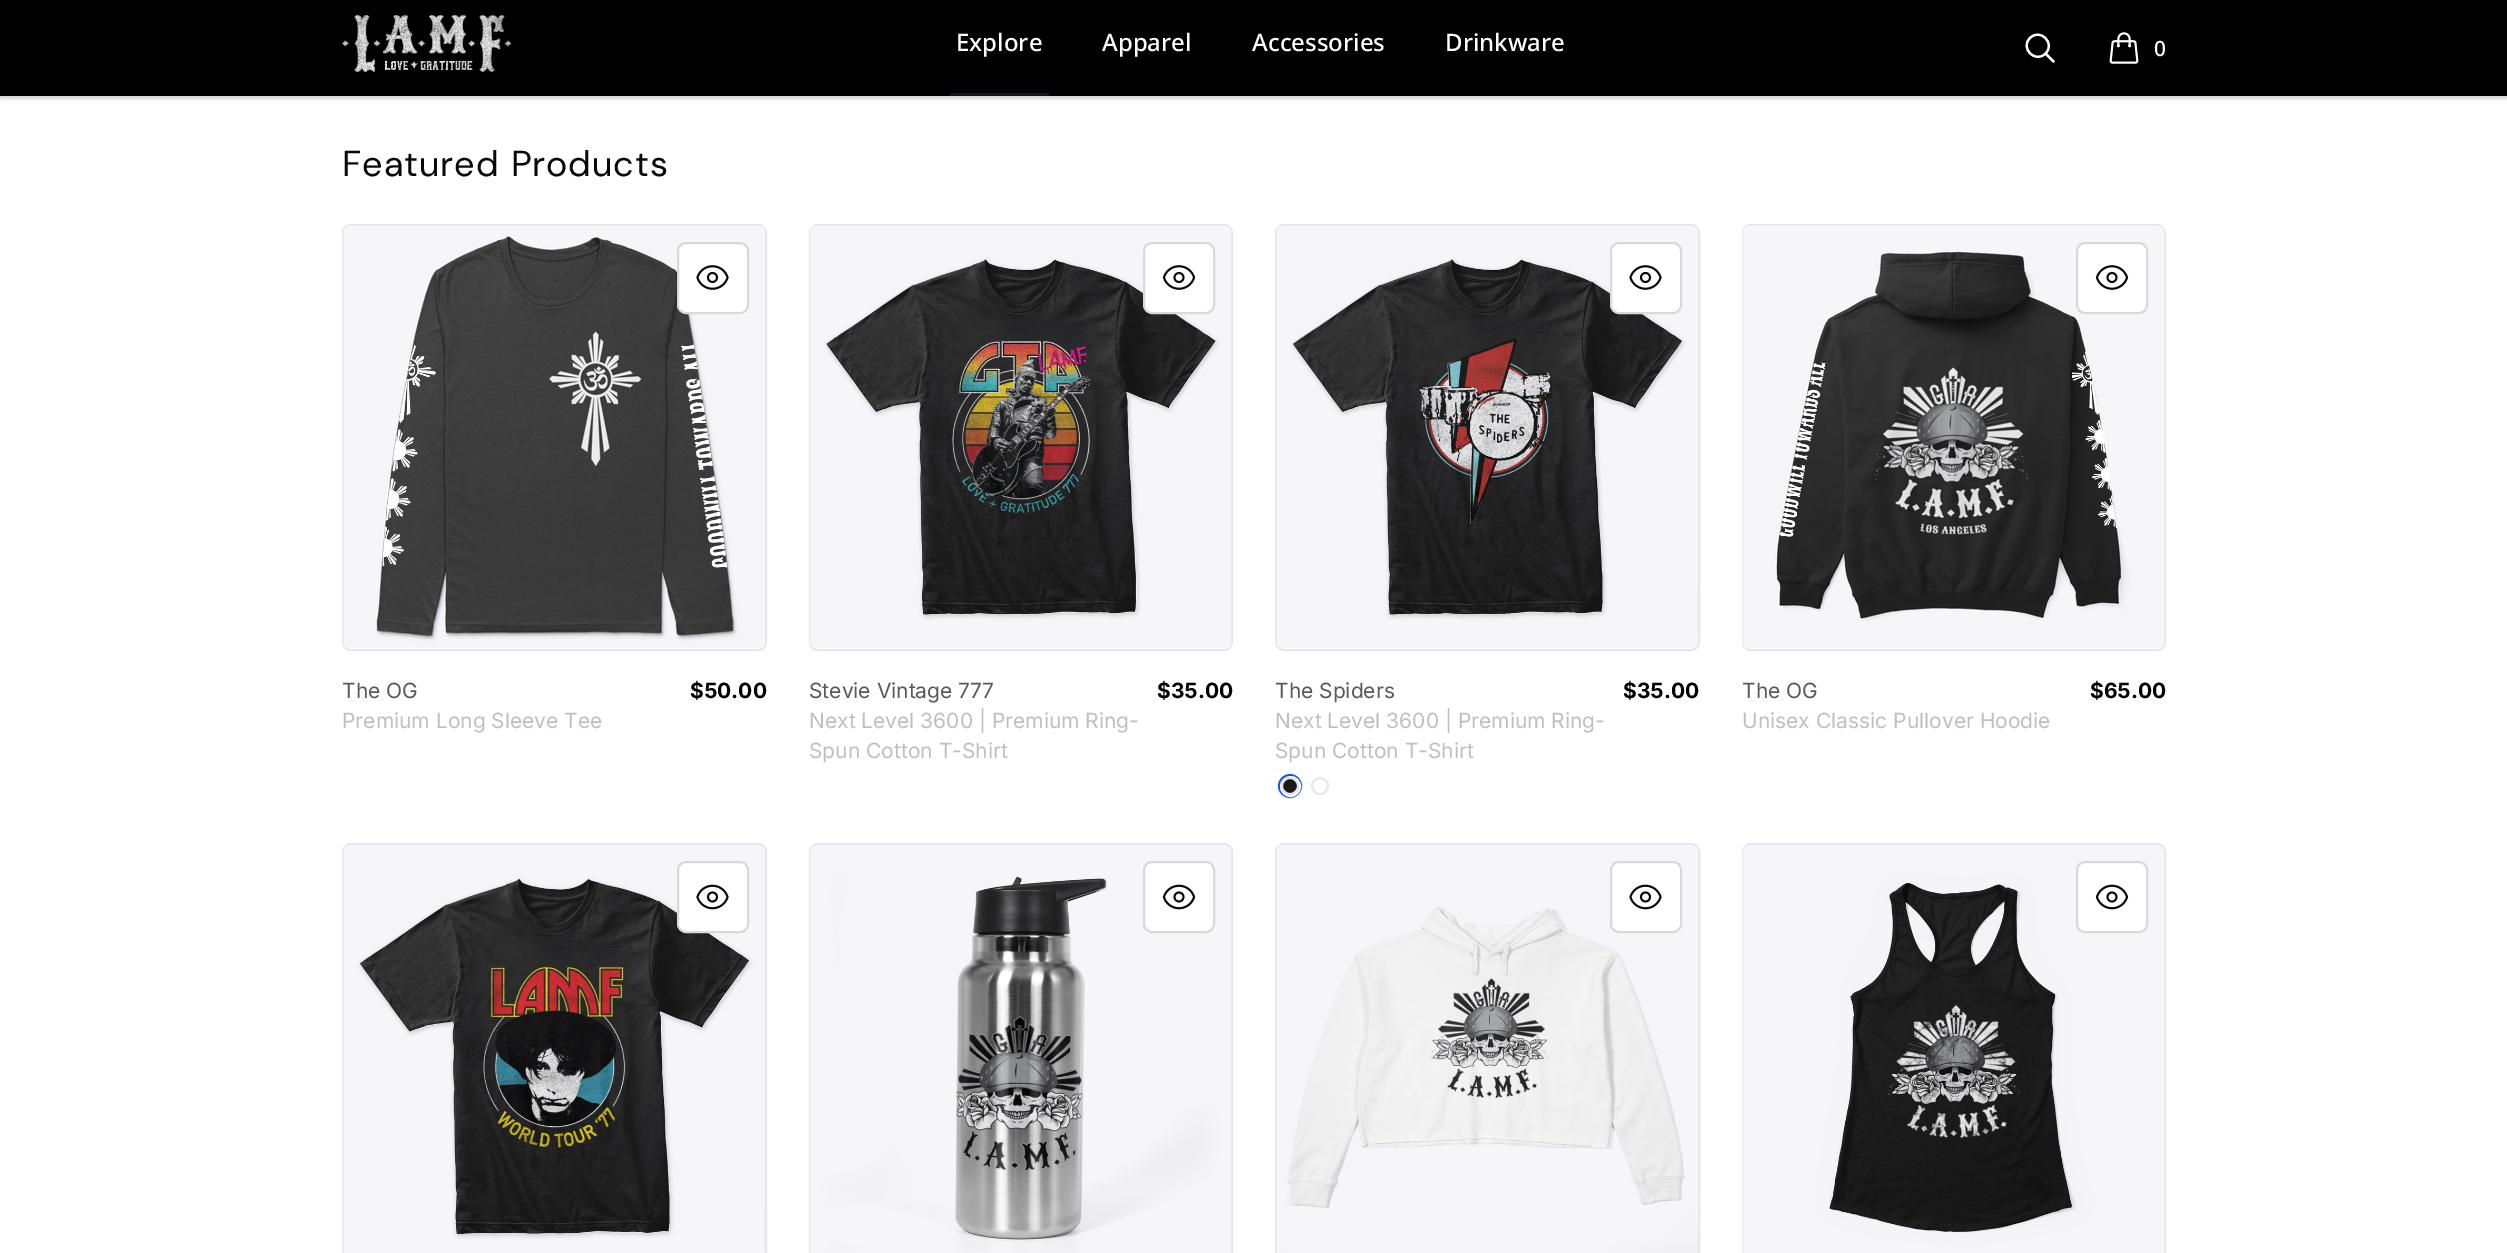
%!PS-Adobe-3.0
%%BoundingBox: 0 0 2507 1253
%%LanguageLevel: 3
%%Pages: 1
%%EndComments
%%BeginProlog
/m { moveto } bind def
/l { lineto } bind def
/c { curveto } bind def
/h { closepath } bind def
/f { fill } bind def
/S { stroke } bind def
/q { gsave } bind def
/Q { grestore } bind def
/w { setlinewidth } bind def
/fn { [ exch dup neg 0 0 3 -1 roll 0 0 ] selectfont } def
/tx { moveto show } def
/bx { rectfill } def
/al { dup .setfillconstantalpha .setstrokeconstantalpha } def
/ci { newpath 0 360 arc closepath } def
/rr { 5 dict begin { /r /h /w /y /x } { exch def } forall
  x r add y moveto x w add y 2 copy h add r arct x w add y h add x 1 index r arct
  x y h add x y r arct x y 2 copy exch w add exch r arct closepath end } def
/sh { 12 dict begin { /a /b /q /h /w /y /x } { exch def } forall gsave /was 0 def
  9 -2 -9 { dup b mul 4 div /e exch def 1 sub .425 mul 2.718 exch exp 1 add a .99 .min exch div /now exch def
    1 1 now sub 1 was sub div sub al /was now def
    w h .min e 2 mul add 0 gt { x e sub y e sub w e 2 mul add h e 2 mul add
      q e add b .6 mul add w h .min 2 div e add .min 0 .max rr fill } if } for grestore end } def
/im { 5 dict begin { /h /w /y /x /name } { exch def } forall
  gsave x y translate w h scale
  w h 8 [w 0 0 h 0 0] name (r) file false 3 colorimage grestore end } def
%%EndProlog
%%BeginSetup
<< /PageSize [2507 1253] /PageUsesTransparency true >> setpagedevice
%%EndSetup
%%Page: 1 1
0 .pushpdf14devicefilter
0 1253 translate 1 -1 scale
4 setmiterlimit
1 setgray
0 0 2507 1253 bx
0 setgray
2 3 2505 95 0 1.5 0.1 sh
0 2 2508 97 0 2 0.1 sh
0 0 2507 96 bx
0.851 setgray
0 96 2507 2 bx
(image0.raw) 342 15 170 58 im
0.067 0.094 0.153 setrgbcolor
950 93 99 3 bx
/NotoSans-Medium 24 fn
1 setgray
(Explore) 956 51 tx
(Apparel) 1102 51 tx
(Accessories) 1252 51 tx
(Drinkware) 1445 51 tx
2.2 w
1 setlinecap
1 setlinejoin
2053.5 61.5 m 2045.5 53.5 l 2045.5 53.5 m 2056 43.5 2040 27.5 2030 38 c 2019.5 48 2035.5 64 2045.5 53.5 c h S
(image1.raw) 2109 32 30 32 im
/NotoSans-Medium 21 fn
(0) 2154 56 tx
/DMSans-Regular 36 fn
0.031 0.031 0.051 setrgbcolor
342 176 m 1 0 32 0.9 0 (Featured Products) awidthshow
0.898 0.906 0.922 setrgbcolor
2 w
0 setlinecap
0 setlinejoin
343 225 423 425 8 rr S
(image2.raw) 343 226 422 422 im
1 setgray
678 243 70 70 8 rr q f Q
0.851 setgray
S
(image3.raw) 696 265 33 25 im
/Inter-Regular 21 fn
0.349 setgray
(The OG) 342 698 tx
0.749 setgray
(Premium Long Sleeve Tee) 342 728 tx
/Inter-Bold 21 fn
0 setgray
($50.00) 690 698 tx
0.898 0.906 0.922 setrgbcolor
810 225 422 425 8 rr S
(image4.raw) 810 226 422 422 im
1 setgray
1144 243 70 70 8 rr q f Q
0.851 setgray
S
(image5.raw) 1162 265 34 25 im
/Inter-Regular 21 fn
0.349 setgray
(Stevie Vintage 777) 809 698 tx
0.749 setgray
(Next Level 3600 | Premium Ring-) 809 728 tx
(Spun Cotton T-Shirt) 809 758 tx
/Inter-Bold 21 fn
0 setgray
($35.00) 1157 698 tx
0.898 0.906 0.922 setrgbcolor
1276 225 423 425 8 rr S
(image6.raw) 1276 226 422 422 im
1 setgray
1611 243 70 70 8 rr q f Q
0.851 setgray
S
(image3.raw) 1629 265 33 25 im
/Inter-Regular 21 fn
0.349 setgray
(The Spiders) 1275 698 tx
0.749 setgray
(Next Level 3600 | Premium Ring-) 1275 728 tx
(Spun Cotton T-Shirt) 1275 758 tx
/Inter-Bold 21 fn
0 setgray
($35.00) 1623 698 tx
0.098 0.329 0.922 setrgbcolor
3 w
1290 786 10.5 ci S
1 setgray
2 w
1290.5 786.5 9.5 ci S
0.102 setgray
1290 786 8 ci q f Q
0.898 0.906 0.922 setrgbcolor
S
1320 786 8 ci S
1743 225 422 425 8 rr S
(image7.raw) 1743 226 422 422 im
1 setgray
2077 243 70 70 8 rr q f Q
0.851 setgray
S
(image5.raw) 2095 265 34 25 im
/Inter-Regular 21 fn
0.349 setgray
(The OG) 1742 698 tx
0.749 setgray
(Unisex Classic Pullover Hoodie) 1742 728 tx
/Inter-Bold 21 fn
0 setgray
($65.00) 2090 698 tx
0.898 0.906 0.922 setrgbcolor
343 844 423 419 8 rr S
(image8.raw) 343 846 422 407 im
1 setgray
678 862 70 70 8 rr q f Q
0.851 setgray
S
(image9.raw) 696 884 33 26 im
0.898 0.906 0.922 setrgbcolor
810 844 422 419 8 rr S
(image10.raw) 810 846 422 407 im
1 setgray
1144 862 70 70 8 rr q f Q
0.851 setgray
S
(image11.raw) 1162 884 34 26 im
0.898 0.906 0.922 setrgbcolor
1276 844 423 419 8 rr S
(image12.raw) 1276 846 422 407 im
1 setgray
1611 862 70 70 8 rr q f Q
0.851 setgray
S
(image9.raw) 1629 884 33 26 im
0.898 0.906 0.922 setrgbcolor
1743 844 422 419 8 rr S
(image13.raw) 1743 846 422 407 im
1 setgray
2077 862 70 70 8 rr q f Q
0.851 setgray
S
(image11.raw) 2095 884 34 26 im
.poppdf14devicefilter showpage
%%EOF
